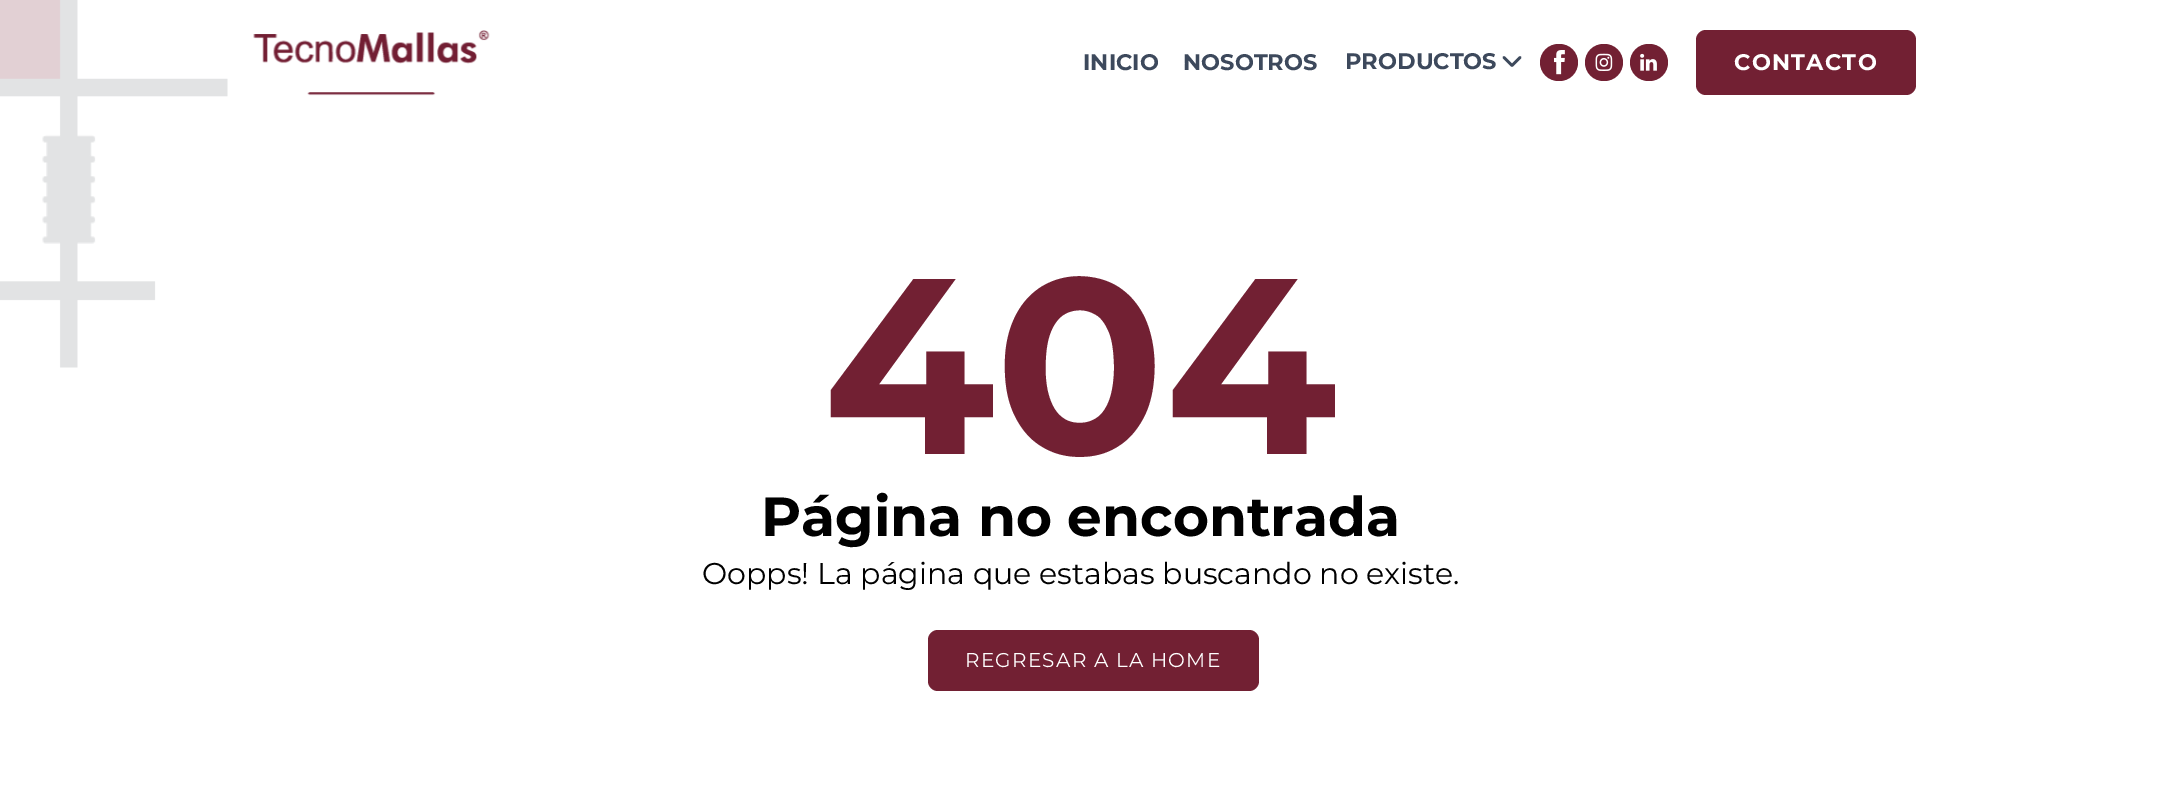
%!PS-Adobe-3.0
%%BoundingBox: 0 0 2161 799
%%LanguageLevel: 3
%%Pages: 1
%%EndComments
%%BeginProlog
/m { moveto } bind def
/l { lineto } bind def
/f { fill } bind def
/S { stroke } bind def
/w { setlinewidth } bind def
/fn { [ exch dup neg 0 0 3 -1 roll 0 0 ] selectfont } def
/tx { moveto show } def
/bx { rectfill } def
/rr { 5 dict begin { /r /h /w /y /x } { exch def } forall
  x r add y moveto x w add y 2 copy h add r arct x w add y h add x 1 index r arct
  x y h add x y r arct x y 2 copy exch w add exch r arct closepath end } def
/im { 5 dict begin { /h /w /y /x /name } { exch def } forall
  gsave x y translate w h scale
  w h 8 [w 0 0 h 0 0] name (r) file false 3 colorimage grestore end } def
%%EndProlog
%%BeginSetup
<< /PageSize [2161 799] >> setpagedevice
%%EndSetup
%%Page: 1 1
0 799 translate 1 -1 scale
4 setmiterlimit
1 setgray
0 0 2161 799 bx
(image0.raw) 0 0 228 368 im
(image1.raw) 253 30 237 66 im
/Montserrat-Bold 22.5 fn
0.239 0.286 0.361 setrgbcolor
(INICIO) 1083 70 tx
(NOSOTROS) 1183 70 tx
(PRODUCTOS) 1345 69 tx
2.5 w
1 setlinecap
1 setlinejoin
1504 57.5 m 1512 65.5 l 1520 57.5 l S
0.447 0.125 0.2 setrgbcolor
1540 44 38 37 18.5 rr f
(image2.raw) 1554 50 11 25 im
1585 44 38 37 18.5 rr f
(image3.raw) 1595 53 18 18 im
1630 44 38 37 18.5 rr f
(image4.raw) 1640 53 17 18 im
1696 30 220 65 10 rr f
1 setgray
1734 70 m 1.25 0 (CONTACTO) ashow
/Montserrat-Bold 250 fn
0.447 0.125 0.2 setrgbcolor
(404) 823 454 tx
/Montserrat-Bold 55 fn
0 setgray
(Página no encontrada) 761 536 tx
/Montserrat-Regular 30 fn
(Oopps! La página que estabas buscando no existe.) 702 584 tx
0.447 0.125 0.2 setrgbcolor
928 630 331 61 10 rr f
/Montserrat-Regular 20 fn
1 setgray
965 667 m 1.25 0 (REGRESAR A LA HOME) ashow
showpage
%%EOF
